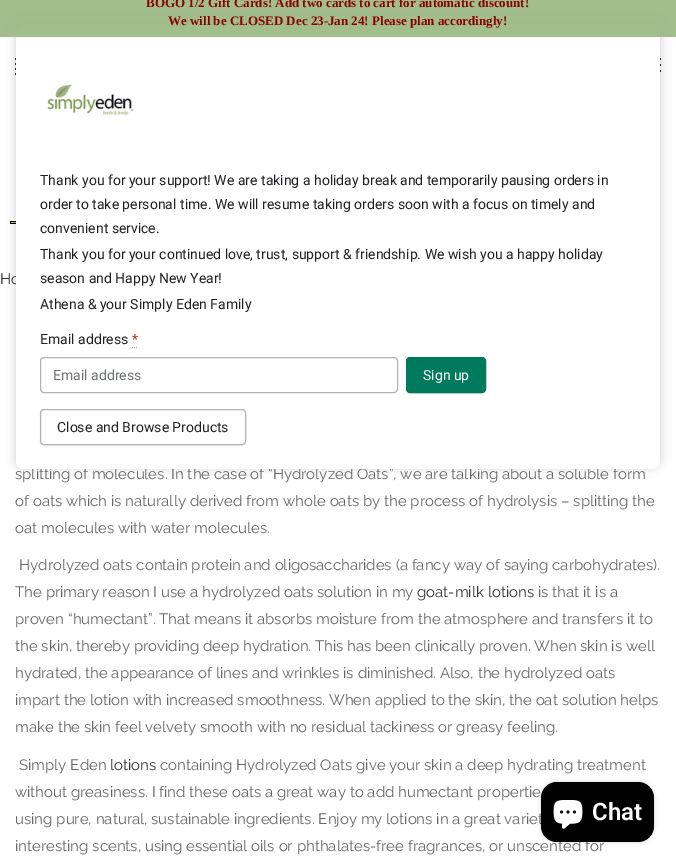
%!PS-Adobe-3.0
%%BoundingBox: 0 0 676 863
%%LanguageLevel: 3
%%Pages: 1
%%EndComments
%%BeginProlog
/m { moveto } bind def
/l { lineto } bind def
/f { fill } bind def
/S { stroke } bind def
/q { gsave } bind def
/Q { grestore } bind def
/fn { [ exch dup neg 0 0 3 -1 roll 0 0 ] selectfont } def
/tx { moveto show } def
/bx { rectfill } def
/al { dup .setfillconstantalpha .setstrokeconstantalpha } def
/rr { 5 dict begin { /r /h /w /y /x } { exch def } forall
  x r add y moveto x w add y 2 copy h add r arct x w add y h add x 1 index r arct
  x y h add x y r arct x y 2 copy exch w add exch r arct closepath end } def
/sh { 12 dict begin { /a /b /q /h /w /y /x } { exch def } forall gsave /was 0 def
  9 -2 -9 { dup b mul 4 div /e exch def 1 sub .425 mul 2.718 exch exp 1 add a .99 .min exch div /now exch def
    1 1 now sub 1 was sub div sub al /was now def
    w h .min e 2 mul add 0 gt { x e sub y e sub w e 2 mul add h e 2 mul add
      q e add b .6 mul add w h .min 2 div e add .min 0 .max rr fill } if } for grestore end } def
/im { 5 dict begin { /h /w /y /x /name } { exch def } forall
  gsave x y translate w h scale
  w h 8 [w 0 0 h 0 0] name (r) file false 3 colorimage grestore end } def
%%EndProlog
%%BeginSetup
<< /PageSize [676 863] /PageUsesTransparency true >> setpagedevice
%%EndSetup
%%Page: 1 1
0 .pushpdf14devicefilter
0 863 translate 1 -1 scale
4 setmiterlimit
1 setgray
0 0 676 863 bx
0.137 0.184 0.243 setrgbcolor
15 58 1 2 bx
15 63 1 2 bx
15 68 1 2 bx
15 73 1 2 bx
0.2 setgray
660 58 1 2 bx
660 64 1 2 bx
660 70 1 2 bx
(image1.raw) 10 221 6 3 im
0 setgray
16 22 644 445 8 5 0.2 sh
/Raleway-Regular 15 fn
0.2 setgray
(Ho) 0 284 tx
0.4 setgray
(splitting of molecules. In the case of “Hydrolyzed Oats”, we are talking about a soluble form) 15 479 tx
1 setgray
16 24 644 445 8 rr f
0.95 al
0.616 0.729 0.522 setrgbcolor
0 0 676 37 bx
/LiberationSerif-Bold 13 fn
1 al
0.545 0 0 setrgbcolor
(BOGO 1/2 Gift Cards! Add two cards to cart for automatic discount!) 146 7 tx
(We will be CLOSED Dec 23-Jan 24! Please plan accordingly!) 168 25 tx
(image0.raw) 46 84 88 32 im
/Roboto-Regular 14 fn
0.122 0.129 0.141 setrgbcolor
(Thank you for your support! We are taking a holiday break and temporarily pausing orders in) 40 185 tx
(order to take personal time. We will resume taking orders soon with a focus on timely and) 40 209 tx
(convenient service.) 40 233 tx
(Thank you for your continued love, trust, support & friendship. We wish you a happy holiday) 40 259 tx
(season and Happy New Year!) 40 283 tx
(Athena & your Simply Eden Family) 40 309 tx
(Email address) 40 344 tx
0.773 0.157 0.047 setrgbcolor
(*) 132 344 tx
0.667 setgray
132 347.5 m 133 347.5 l 134 347.5 m 135 347.5 l 136 347.5 m 137 347.5 l S
0.682 0.706 0.725 setrgbcolor
40.5 357.5 357 35 3.5 rr S
0.427 0.443 0.459 setrgbcolor
(Email address) 53 380 tx
0.122 0.129 0.141 setrgbcolor
406 358 80 36 4 0.5 0.1 sh
0 0.478 0.361 setrgbcolor
406.5 357.5 79 35 3.5 rr q f Q
S
1 setgray
(Sign up) 423 380 tx
0.122 0.129 0.141 setrgbcolor
40 410 206 36 4 0.5 0.1 sh
1 setgray
40.5 409.5 205 35 3.5 rr q f Q
0.682 0.706 0.725 setrgbcolor
S
0.122 0.129 0.141 setrgbcolor
(Close and Browse Products) 57 432 tx
/Raleway-Regular 15 fn
0.4 setgray
(of oats which is naturally derived from whole oats by the process of hydrolysis – splitting the) 15 506 tx
(oat molecules with water molecules.) 15 533 tx
(Hydrolyzed oats contain protein and oligosaccharides \(a fancy way of saying carbohydrates\).) 19 570 tx
(The primary reason I use a hydrolyzed oats solution in my) 15 597 tx
0.2 setgray
(goat-milk lotions) 417 597 tx
0.4 setgray
(is that it is a) 538 597 tx
(proven “humectant”. That means it absorbs moisture from the atmosphere and transfers it to) 15 624 tx
(the skin, thereby providing deep hydration. This has been clinically proven. When skin is well) 15 651 tx
(hydrated, the appearance of lines and wrinkles is diminished. Also, the hydrolyzed oats) 15 678 tx
(impart the lotion with increased smoothness. When applied to the skin, the oat solution helps) 15 705 tx
(make the skin feel velvety smooth with no residual tackiness or greasy feeling.) 15 732 tx
(Simply Eden) 19 770 tx
0.2 setgray
(lotions) 110 770 tx
0.4 setgray
(containing Hydrolyzed Oats give your skin a deep hydrating treatment) 160 770 tx
(without greasiness. I find these oats a great way to add humectant propertie) 15 797 tx
(using pure, natural, sustainable ingredients. Enjoy my lotions in a great variet) 15 824 tx
(interesting scents, using essential oils or phthalates-free fragrances, or unscented for) 15 851 tx
0 setgray
541 782 113 60 16 2.5 0.15 sh
541 782 113 60 16 rr f
(image2.raw) 553 800 30 29 im
/Roboto-SemiBold 24 fn
1 setgray
(Chat) 592 820 tx
.poppdf14devicefilter showpage
%%EOF
